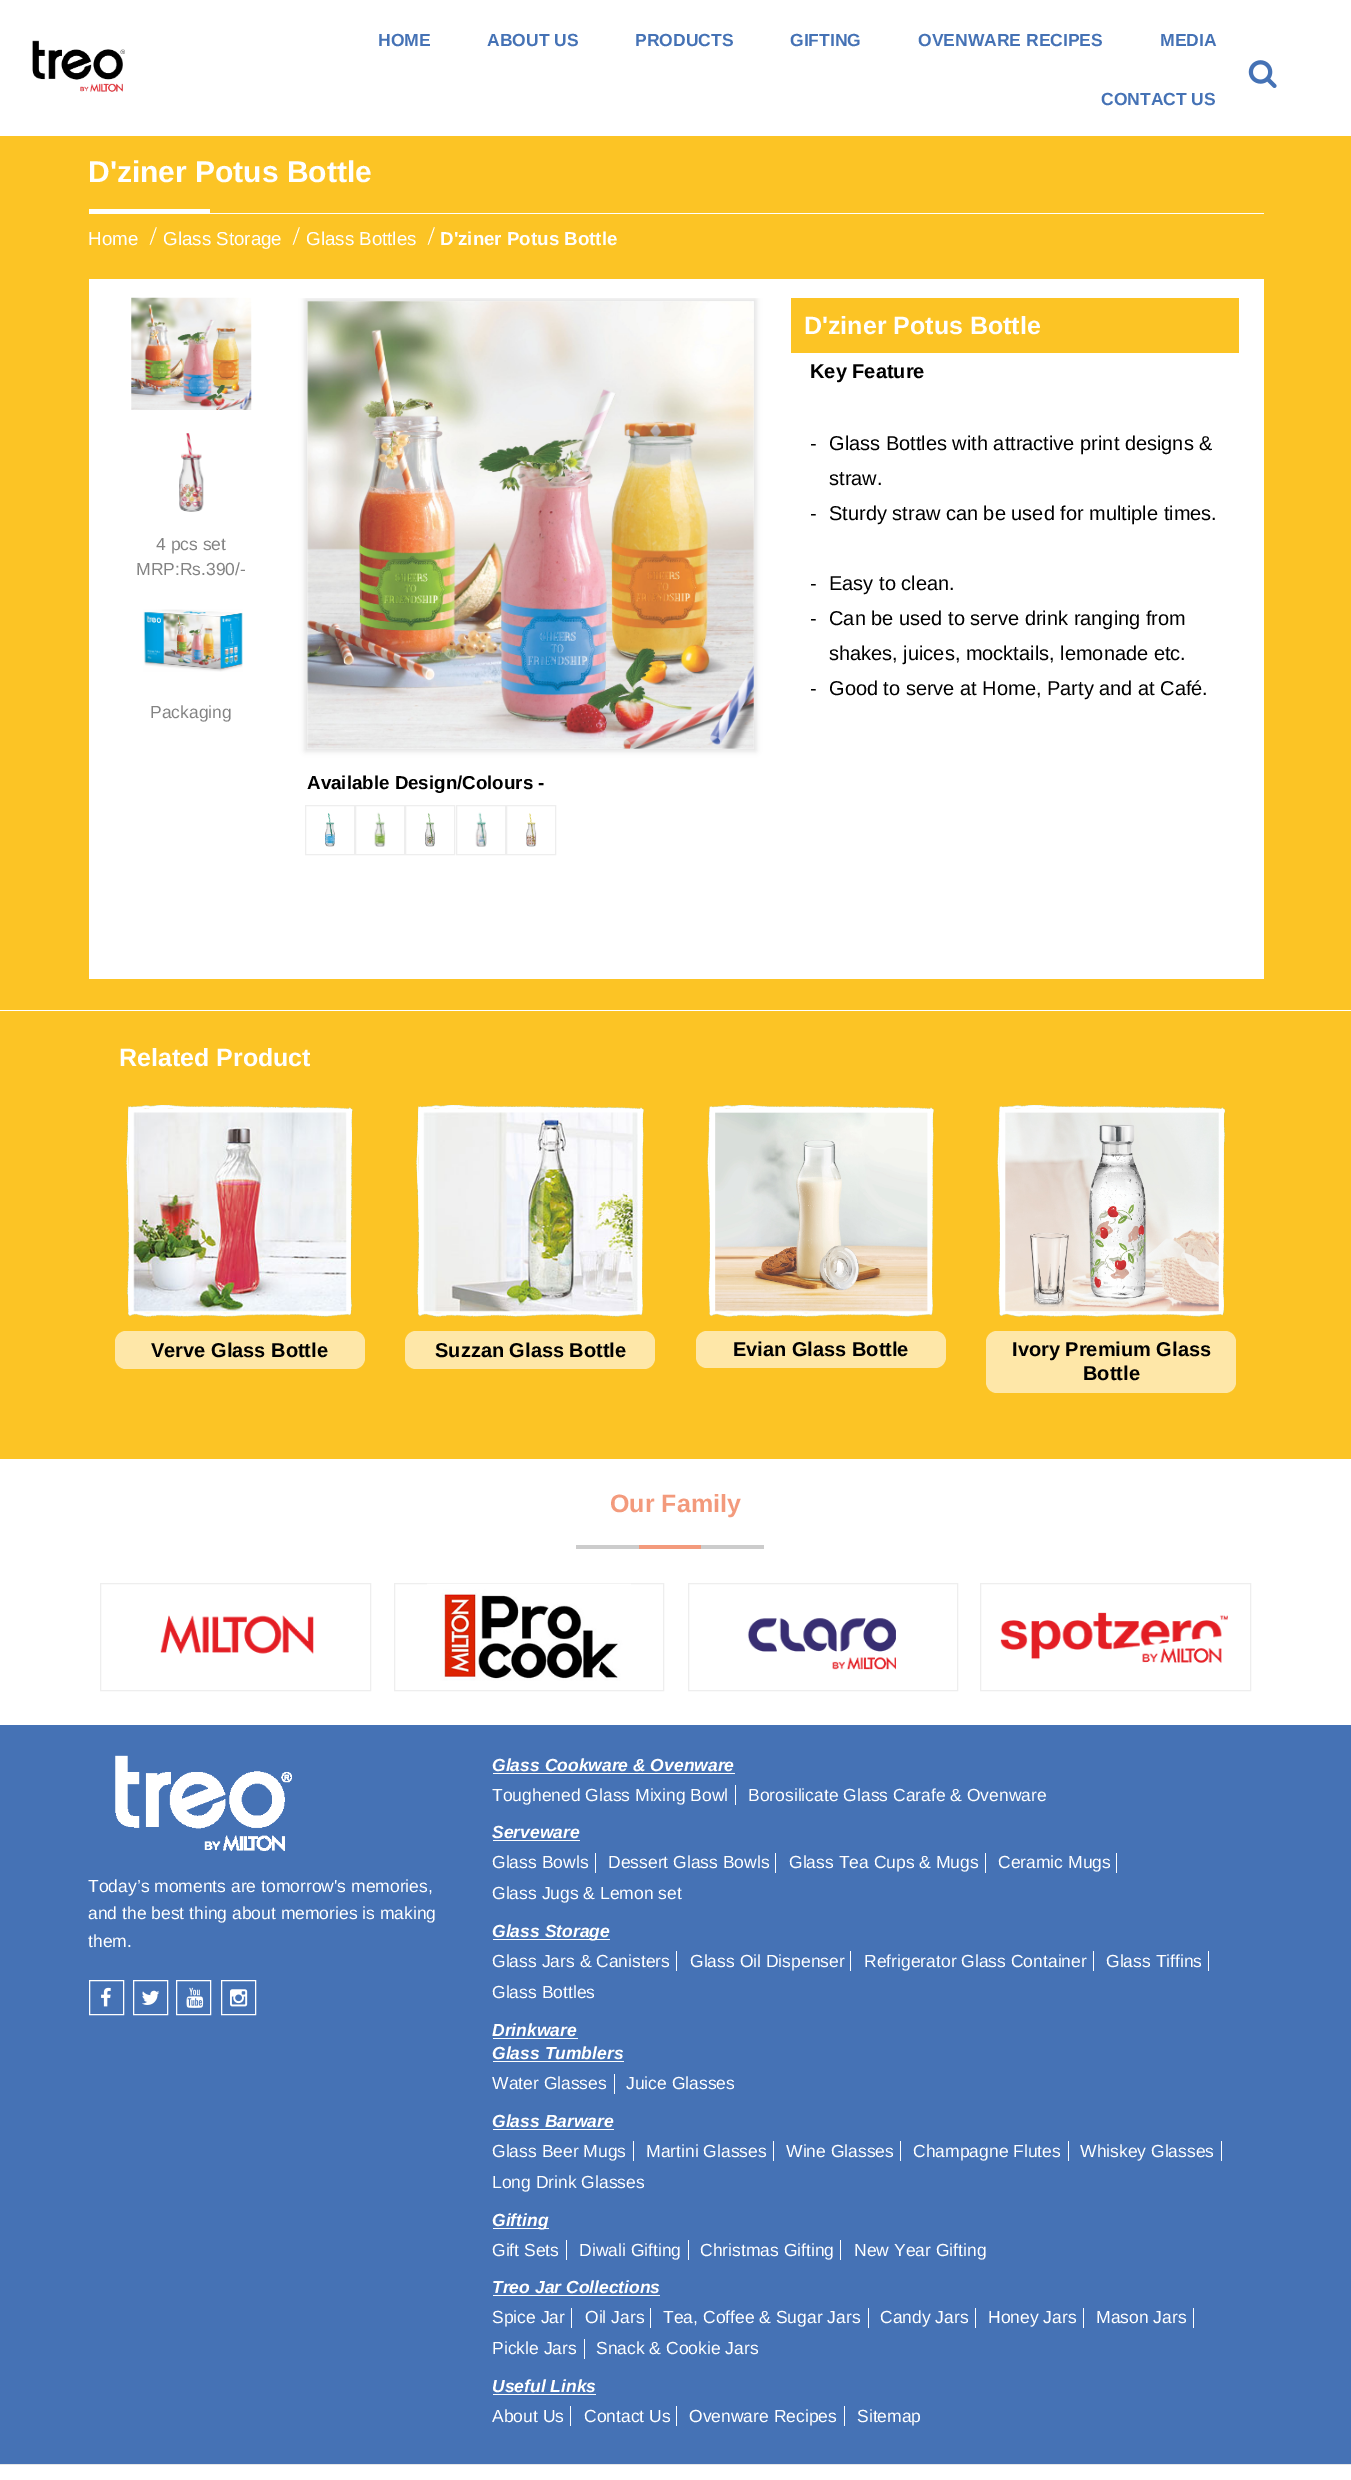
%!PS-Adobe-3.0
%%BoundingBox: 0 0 1351 2480
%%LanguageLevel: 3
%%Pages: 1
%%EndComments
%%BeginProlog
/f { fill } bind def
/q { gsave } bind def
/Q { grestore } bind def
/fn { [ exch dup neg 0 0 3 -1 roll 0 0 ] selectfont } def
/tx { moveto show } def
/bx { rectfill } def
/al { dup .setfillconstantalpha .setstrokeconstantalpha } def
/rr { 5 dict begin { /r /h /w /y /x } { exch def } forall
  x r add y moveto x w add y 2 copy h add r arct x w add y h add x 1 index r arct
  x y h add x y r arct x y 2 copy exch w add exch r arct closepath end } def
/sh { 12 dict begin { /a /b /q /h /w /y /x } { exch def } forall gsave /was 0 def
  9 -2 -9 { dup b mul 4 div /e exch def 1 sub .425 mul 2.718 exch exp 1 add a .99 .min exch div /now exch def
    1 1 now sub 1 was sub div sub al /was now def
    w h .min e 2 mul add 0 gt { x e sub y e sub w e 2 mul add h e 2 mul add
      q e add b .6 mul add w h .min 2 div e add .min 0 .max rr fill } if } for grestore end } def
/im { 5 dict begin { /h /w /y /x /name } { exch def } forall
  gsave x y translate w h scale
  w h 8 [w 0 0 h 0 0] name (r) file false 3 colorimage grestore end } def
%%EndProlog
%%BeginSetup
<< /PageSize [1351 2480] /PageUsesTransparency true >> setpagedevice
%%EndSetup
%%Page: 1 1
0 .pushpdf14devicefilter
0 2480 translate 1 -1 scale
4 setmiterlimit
1 setgray
0 0 1351 2480 bx
(image0.raw) 32 40 93 52 im
/LiberationSans-Bold 17.5 fn
0.271 0.447 0.71 setrgbcolor
(HOME) 378 46 tx
(ABOUT US) 487 46 tx
(PRODUCTS) 635 46 tx
(GIFTING) 790 46 tx
(OVENWARE RECIPES) 918 46 tx
(MEDIA) 1160 46 tx
(CONTACT US) 1101 105 tx
(image1.raw) 1248 60 29 28 im
0.988 0.769 0.145 setrgbcolor
0 136 1351 874 bx
/LiberationSans-Bold 30 fn
1 setgray
(D'ziner Potus Bottle) 88 182 tx
89 209 121 5 bx
210 213 1054 1 bx
/LiberationSans-Regular 18.75 fn
(Home) 88 245 tx
/Montserrat-Regular 18.75 fn
(/) 150 243 tx
/LiberationSans-Regular 18.75 fn
(Glass Storage) 163 245 tx
/Montserrat-Regular 18.75 fn
(/) 293 243 tx
/LiberationSans-Regular 18.75 fn
(Glass Bottles) 306 245 tx
/Montserrat-Regular 18.75 fn
(/) 428 243 tx
/LiberationSans-Bold 18.75 fn
(D'ziner Potus Bottle) 440 245 tx
89 279 1175 700 bx
(image2.raw) 131 297 121 113 im
(image3.raw) 179 433 25 79 im
/LiberationSans-Regular 17.5 fn
0.514 setgray
(4 pcs set) 156 550 tx
(MRP:Rs.390/-) 136 575 tx
(image4.raw) 143 609 100 63 im
(Packaging) 150 718 tx
0.988 0.769 0.145 setrgbcolor
791 298 448 55 bx
/LiberationSans-Bold 25 fn
1 setgray
(D'ziner Potus Bottle) 804 334 tx
/LiberationSans-Bold 20 fn
0 setgray
(Key Feature) 810 378 tx
/LiberationSans-Regular 20 fn
(-) 810 450 tx
(Glass Bottles with attractive print designs &) 829 450 tx
(straw.) 829 485 tx
(-) 810 520 tx
(Sturdy straw can be used for multiple times.) 829 520 tx
(-) 810 590 tx
(Easy to clean.) 829 590 tx
(-) 810 625 tx
(Can be used to serve drink ranging from) 829 625 tx
(shakes, juices, mocktails, lemonade etc.) 829 660 tx
(-) 810 695 tx
(Good to serve at Home, Party and at Café.) 829 695 tx
q
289 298 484 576 rectclip
0.82 setgray
305 299 451 452 0 3 0.7 sh
Q
(image5.raw) 307 301 447 448 im
/LiberationSans-Bold 18.75 fn
(Available Design/Colours -) 307 789 tx
0.933 setgray
305.5 805.5 49 49 rectstroke
355.5 805.5 49 49 rectstroke
405.5 805.5 49 49 rectstroke
456.5 805.5 49 49 rectstroke
506.5 805.5 49 49 rectstroke
(image6.raw) 325 813 10 34 im
(image7.raw) 374 812 12 35 im
(image8.raw) 425 813 10 34 im
(image9.raw) 475 812 12 35 im
(image10.raw) 526 813 11 34 im
0.988 0.769 0.145 setrgbcolor
0 1011 1351 448 bx
/LiberationSans-Bold 25 fn
1 setgray
(Related Product) 119 1066 tx
(image11.raw) 126 1105 227 213 im
(image12.raw) 133 1112 214 200 im
0.996 0.906 0.659 setrgbcolor
115 1331 250 38 11 rr f
/LiberationSans-Bold 20 fn
0 setgray
(Verve Glass Bottle) 151 1357 tx
(image13.raw) 416 1105 228 212 im
(image14.raw) 423 1112 215 200 im
0.996 0.906 0.659 setrgbcolor
405 1331 250 38 11 rr f
0 setgray
(Suzzan Glass Bottle) 435 1357 tx
(image15.raw) 707 1105 227 213 im
(image16.raw) 715 1112 213 200 im
0.996 0.906 0.659 setrgbcolor
696 1331 250 37 11 rr f
0 setgray
(Evian Glass Bottle) 733 1356 tx
(image17.raw) 997 1105 228 213 im
(image18.raw) 1005 1112 214 200 im
0.996 0.906 0.659 setrgbcolor
986 1331 250 62 11 rr f
0 setgray
(Ivory Premium Glass) 1012 1356 tx
(Bottle) 1083 1380 tx
/LiberationSans-Bold 25 fn
0.953 0.604 0.486 setrgbcolor
(Our Family) 610 1512 tx
0.8 setgray
576 1545 188 4 bx
0.953 0.604 0.486 setrgbcolor
639 1545 62 4 bx
0.933 setgray
100.5 1583.5 270 107 rectstroke
(image19.raw) 160 1615 154 39 im
394.5 1583.5 269 107 rectstroke
(image20.raw) 427 1583 204 98 im
688.5 1583.5 269 107 rectstroke
(image21.raw) 747 1618 149 52 im
980.5 1583.5 270 107 rectstroke
(image22.raw) 1000 1612 228 51 im
0.271 0.447 0.71 setrgbcolor
0 1725 1351 739 bx
0.902 setgray
0 2464 1351 1 bx
(image23.raw) 115 1755 177 96 im
/LiberationSans-Regular 17.5 fn
1 setgray
(Today’s moments are tomorrow's memories,) 88 1892 tx
(and the best thing about memories is making) 88 1919 tx
(them.) 88 1947 tx
89.5 1980.5 34 34 rectstroke
(image24.raw) 101 1987 10 20 im
133.5 1980.5 34 34 rectstroke
(image25.raw) 142 1990 18 15 im
176.5 1980.5 34 34 rectstroke
(image26.raw) 186 1987 18 21 im
221.5 1980.5 34 34 rectstroke
(image27.raw) 230 1989 18 18 im
/LiberationSans-BoldItalic 17.5 fn
(Glass Cookware & Ovenware) 492 1771 tx
493 1773 242 1 bx
/LiberationSans-Regular 17.5 fn
(Toughened Glass Mixing Bowl) 492 1801 tx
735 1785 1 20 bx
(Borosilicate Glass Carafe & Ovenware) 748 1801 tx
/LiberationSans-BoldItalic 17.5 fn
(Serveware) 492 1838 tx
493 1840 87 1 bx
/LiberationSans-Regular 17.5 fn
(Glass Bowls) 492 1868 tx
595 1853 1 20 bx
(Dessert Glass Bowls) 608 1868 tx
775 1853 1 20 bx
(Glass Tea Cups & Mugs) 789 1868 tx
985 1853 1 20 bx
(Ceramic Mugs) 998 1868 tx
1116 1853 1 20 bx
(Glass Jugs & Lemon set) 492 1899 tx
493 1939 117 1 bx
/LiberationSans-BoldItalic 17.5 fn
(Glass Storage) 492 1937 tx
/LiberationSans-Regular 17.5 fn
(Glass Jars & Canisters) 492 1967 tx
676 1951 1 20 bx
(Glass Oil Dispenser) 690 1967 tx
850 1951 1 20 bx
(Refrigerator Glass Container) 864 1967 tx
1093 1951 1 20 bx
(Glass Tiffins) 1106 1967 tx
1208 1951 1 20 bx
(Glass Bottles) 492 1998 tx
/LiberationSans-BoldItalic 17.5 fn
(Drinkware) 492 2036 tx
493 2038 85 1 bx
(Glass Tumblers) 492 2059 tx
493 2061 131 1 bx
/LiberationSans-Regular 17.5 fn
(Water Glasses) 492 2089 tx
614 2074 1 20 bx
(Juice Glasses) 626 2089 tx
/LiberationSans-BoldItalic 17.5 fn
(Glass Barware) 492 2127 tx
493 2129 121 1 bx
/LiberationSans-Regular 17.5 fn
(Glass Beer Mugs) 492 2157 tx
633 2141 1 20 bx
(Martini Glasses) 646 2157 tx
773 2141 1 20 bx
(Wine Glasses) 786 2157 tx
900 2141 1 20 bx
(Champagne Flutes) 913 2157 tx
1068 2141 1 20 bx
(Whiskey Glasses) 1080 2157 tx
1221 2141 1 20 bx
(Long Drink Glasses) 492 2188 tx
493 2228 56 1 bx
/LiberationSans-BoldItalic 17.5 fn
(Gifting) 492 2226 tx
/LiberationSans-Regular 17.5 fn
(Gift Sets) 492 2256 tx
566 2240 1 20 bx
(Diwali Gifting) 579 2256 tx
688 2240 1 20 bx
(Christmas Gifting) 700 2256 tx
840 2240 1 20 bx
(New Year Gifting) 854 2256 tx
/LiberationSans-BoldItalic 17.5 fn
(Treo Jar Collections) 492 2293 tx
493 2295 167 1 bx
/LiberationSans-Regular 17.5 fn
(Spice Jar) 492 2323 tx
571 2308 1 20 bx
(Oil Jars) 585 2323 tx
650 2308 1 20 bx
(Tea, Coffee & Sugar Jars) 663 2323 tx
868 2308 1 20 bx
(Candy Jars) 880 2323 tx
975 2308 1 20 bx
(Honey Jars) 988 2323 tx
1083 2308 1 20 bx
(Mason Jars) 1096 2323 tx
1193 2308 1 20 bx
(Pickle Jars) 492 2354 tx
584 2339 1 20 bx
(Snack & Cookie Jars) 596 2354 tx
/LiberationSans-BoldItalic 17.5 fn
(Useful Links) 492 2392 tx
493 2394 103 1 bx
/LiberationSans-Regular 17.5 fn
(About Us) 492 2422 tx
570 2406 1 20 bx
(Contact Us) 584 2422 tx
676 2406 1 20 bx
(Ovenware Recipes) 689 2422 tx
844 2406 1 20 bx
(Sitemap) 857 2422 tx
.poppdf14devicefilter showpage
%%EOF
